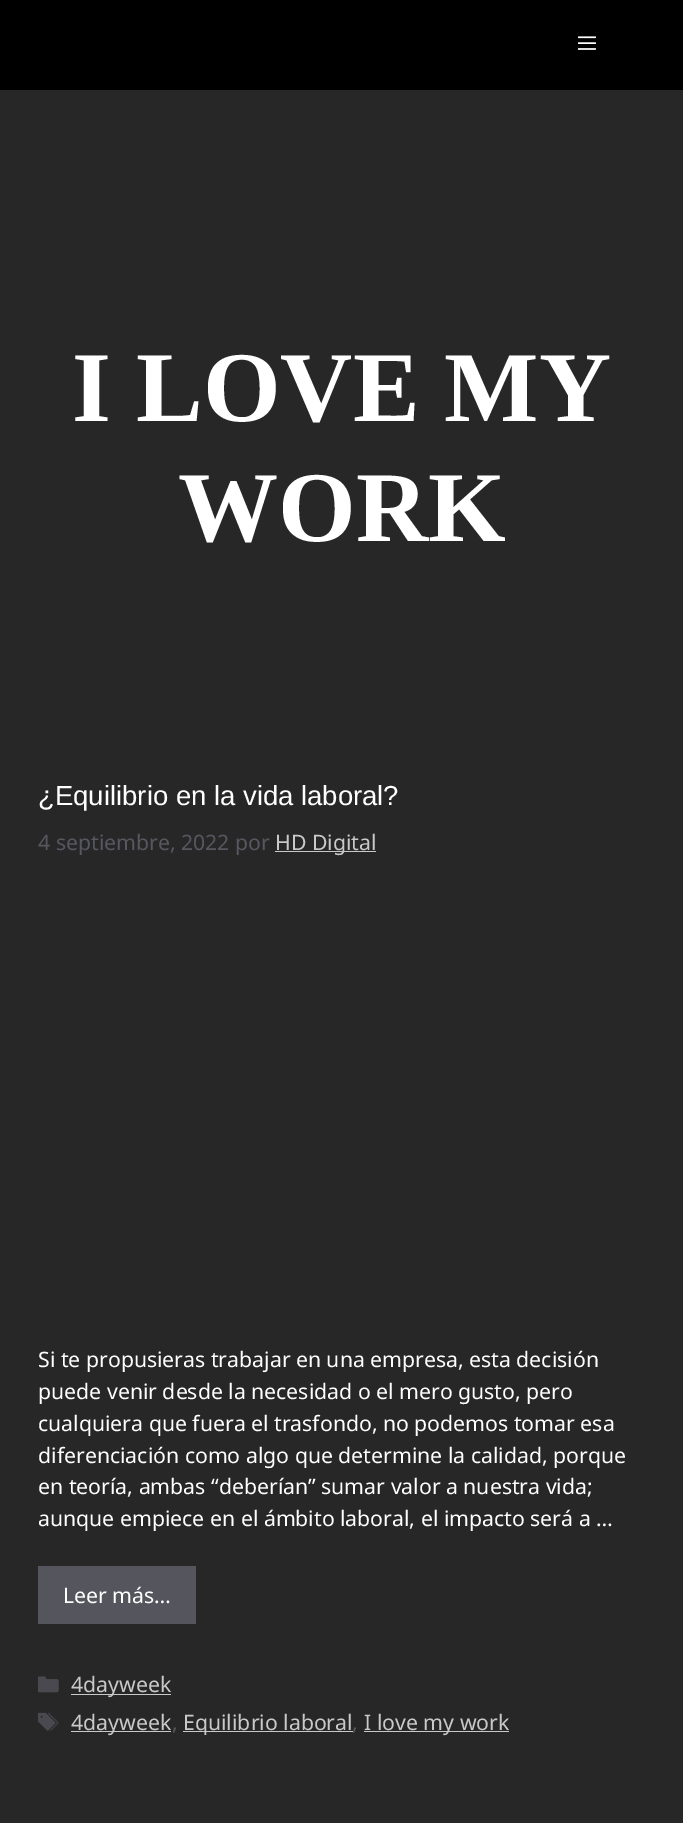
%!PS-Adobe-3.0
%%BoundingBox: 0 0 683 1823
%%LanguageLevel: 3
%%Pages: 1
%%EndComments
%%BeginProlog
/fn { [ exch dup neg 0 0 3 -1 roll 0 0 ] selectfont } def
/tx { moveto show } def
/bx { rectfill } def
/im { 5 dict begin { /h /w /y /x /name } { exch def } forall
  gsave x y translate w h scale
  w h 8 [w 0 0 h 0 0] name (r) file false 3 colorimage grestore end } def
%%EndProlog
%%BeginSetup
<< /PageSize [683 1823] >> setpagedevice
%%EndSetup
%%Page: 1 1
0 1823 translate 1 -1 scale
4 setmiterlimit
0.153 setgray
0 0 683 1823 bx
0 setgray
0 0 683 90 bx
(image0.raw) 578 36 18 14 im
/LiberationSerif-Bold 100 fn
1 setgray
(I LOVE MY) 72 421 tx
(WORK) 178 541 tx
/LiberationSans-Regular 27.5 fn
(¿Equilibrio en la vida laboral?) 38 805 tx
/NotoSans-Regular 21.25 fn
0.341 0.341 0.376 setrgbcolor
(4 septiembre, 2022 por) 38 850 tx
0.788 setgray
275 851 101 1 bx
(HD Digital) 275 850 tx
1 setgray
(Si te propusieras trabajar en una empresa, esta decisión) 38 1367 tx
(puede venir desde la necesidad o el mero gusto, pero) 38 1399 tx
(cualquiera que fuera el trasfondo, no podemos tomar esa) 38 1431 tx
(diferenciación como algo que determine la calidad, porque) 38 1463 tx
(en teoría, ambas “deberían” sumar valor a nuestra vida;) 38 1494 tx
(aunque empiece en el ámbito laboral, el impacto será a …) 38 1526 tx
0.333 0.333 0.369 setrgbcolor
38 1566 158 58 bx
1 setgray
(Leer más…) 63 1603 tx
(image1.raw) 38 1676 21 17 im
0.788 setgray
71 1694 100 1 bx
(4dayweek) 71 1692 tx
(image2.raw) 38 1712 21 19 im
71 1731 100 1 bx
(4dayweek) 71 1730 tx
0.341 0.341 0.376 setrgbcolor
(,) 172 1730 tx
0.788 setgray
183 1731 170 1 bx
(Equilibrio laboral) 183 1730 tx
0.341 0.341 0.376 setrgbcolor
(,) 352 1730 tx
0.788 setgray
364 1731 145 1 bx
(I love my work) 364 1730 tx
showpage
%%EOF
